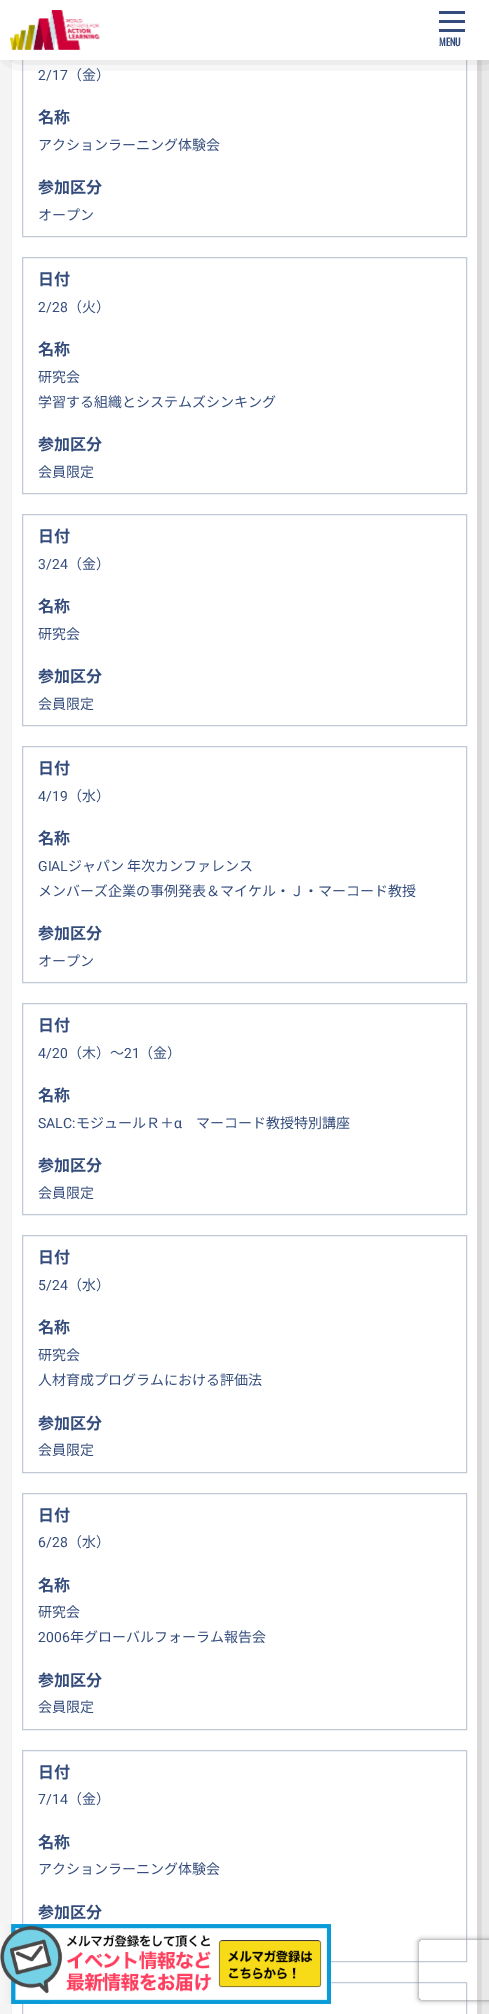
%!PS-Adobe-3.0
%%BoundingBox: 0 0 489 2014
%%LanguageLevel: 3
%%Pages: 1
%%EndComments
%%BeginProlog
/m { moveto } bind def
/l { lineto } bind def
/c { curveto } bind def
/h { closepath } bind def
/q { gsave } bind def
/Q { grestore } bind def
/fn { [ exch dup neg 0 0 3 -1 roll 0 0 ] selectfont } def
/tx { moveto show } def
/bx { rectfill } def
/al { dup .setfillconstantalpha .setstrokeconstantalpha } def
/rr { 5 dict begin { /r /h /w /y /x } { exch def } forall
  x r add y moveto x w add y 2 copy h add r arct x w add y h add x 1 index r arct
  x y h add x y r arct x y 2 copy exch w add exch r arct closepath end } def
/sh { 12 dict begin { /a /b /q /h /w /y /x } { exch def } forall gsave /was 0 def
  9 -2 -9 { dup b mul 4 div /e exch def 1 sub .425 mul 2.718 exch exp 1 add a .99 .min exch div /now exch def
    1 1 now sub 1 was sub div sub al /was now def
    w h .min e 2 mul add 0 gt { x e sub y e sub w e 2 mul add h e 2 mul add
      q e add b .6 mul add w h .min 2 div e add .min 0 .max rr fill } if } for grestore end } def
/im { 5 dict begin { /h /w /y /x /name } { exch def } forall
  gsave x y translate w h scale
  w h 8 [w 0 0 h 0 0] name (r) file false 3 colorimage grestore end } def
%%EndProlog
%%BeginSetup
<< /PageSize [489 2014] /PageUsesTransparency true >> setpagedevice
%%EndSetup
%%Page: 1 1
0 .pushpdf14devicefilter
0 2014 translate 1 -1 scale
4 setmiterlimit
1 setgray
0 0 489 2014 bx
q
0 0 m 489 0 l 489 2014 l 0 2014 l h 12 -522 m 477 -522 l 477 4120 l 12 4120 l h eoclip newpath
0.69 setgray
29 -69 447 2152 0 23 1 sh
Q
0.757 0.788 0.843 setrgbcolor
22.5 25.5 444 211 rectstroke
0 setgray
17 2 471 42 0 12 1 sh
1 setgray
0 0 489 60 bx
(image0.raw) 10 10 90 40 im
0.2 0.298 0.486 setrgbcolor
439 20 26 3 bx
439 11 26 3 bx
439 29 26 3 bx
/Oswald-Bold 10 fn
(MENU) 439 46 tx
/Roboto-Regular 14 fn
(2/17) 38 80 tx
/NotoSansJP-Regular 14 fn
(（金）) 68 80 tx
/NotoSansJP-Bold 16 fn
(名称) 38 123 tx
/NotoSansJP-Regular 14 fn
(アクションラーニング体験会) 38 150 tx
/NotoSansJP-Bold 16 fn
(参加区分) 38 193 tx
/NotoSansJP-Regular 14 fn
(オープン) 38 220 tx
0.757 0.788 0.843 setrgbcolor
22.5 257.5 444 236 rectstroke
/NotoSansJP-Bold 16 fn
0.2 0.298 0.486 setrgbcolor
(日付) 38 285 tx
/Roboto-Regular 14 fn
(2/28) 38 312 tx
/NotoSansJP-Regular 14 fn
(（火）) 68 312 tx
/NotoSansJP-Bold 16 fn
(名称) 38 355 tx
/NotoSansJP-Regular 14 fn
(研究会) 38 382 tx
(学習する組織とシステムズシンキング) 38 407 tx
/NotoSansJP-Bold 16 fn
(参加区分) 38 450 tx
/NotoSansJP-Regular 14 fn
(会員限定) 38 477 tx
0.757 0.788 0.843 setrgbcolor
22.5 514.5 444 211 rectstroke
/NotoSansJP-Bold 16 fn
0.2 0.298 0.486 setrgbcolor
(日付) 38 542 tx
/Roboto-Regular 14 fn
(3/24) 38 569 tx
/NotoSansJP-Regular 14 fn
(（金）) 68 569 tx
/NotoSansJP-Bold 16 fn
(名称) 38 612 tx
/NotoSansJP-Regular 14 fn
(研究会) 38 639 tx
/NotoSansJP-Bold 16 fn
(参加区分) 38 682 tx
/NotoSansJP-Regular 14 fn
(会員限定) 38 709 tx
0.757 0.788 0.843 setrgbcolor
22.5 746.5 444 236 rectstroke
/NotoSansJP-Bold 16 fn
0.2 0.298 0.486 setrgbcolor
(日付) 38 774 tx
/Roboto-Regular 14 fn
(4/19) 38 801 tx
/NotoSansJP-Regular 14 fn
(（水）) 68 801 tx
/NotoSansJP-Bold 16 fn
(名称) 38 844 tx
/Roboto-Regular 14 fn
(GIAL) 38 871 tx
/NotoSansJP-Regular 14 fn
(ジャパン 年次カンファレンス) 68 871 tx
(メンバーズ企業の事例発表＆マイケル・Ｊ・マーコード教授) 38 896 tx
/NotoSansJP-Bold 16 fn
(参加区分) 38 939 tx
/NotoSansJP-Regular 14 fn
(オープン) 38 966 tx
0.757 0.788 0.843 setrgbcolor
22.5 1003.5 444 211 rectstroke
/NotoSansJP-Bold 16 fn
0.2 0.298 0.486 setrgbcolor
(日付) 38 1031 tx
/Roboto-Regular 14 fn
(4/20) 38 1058 tx
/NotoSansJP-Regular 14 fn
(（木）～) 68 1058 tx
/Roboto-Regular 14 fn
(21) 124 1058 tx
/NotoSansJP-Regular 14 fn
(（金）) 139 1058 tx
/NotoSansJP-Bold 16 fn
(名称) 38 1101 tx
/Roboto-Regular 14 fn
(SALC:) 38 1128 tx
/NotoSansJP-Regular 14 fn
(モジュールＲ＋) 76 1128 tx
/Roboto-Regular 14 fn
(α) 174 1128 tx
/NotoSansJP-Regular 14 fn
(マーコード教授特別講座) 196 1128 tx
/NotoSansJP-Bold 16 fn
(参加区分) 38 1171 tx
/NotoSansJP-Regular 14 fn
(会員限定) 38 1198 tx
0.757 0.788 0.843 setrgbcolor
22.5 1235.5 444 237 rectstroke
/NotoSansJP-Bold 16 fn
0.2 0.298 0.486 setrgbcolor
(日付) 38 1263 tx
/Roboto-Regular 14 fn
(5/24) 38 1290 tx
/NotoSansJP-Regular 14 fn
(（水）) 68 1290 tx
/NotoSansJP-Bold 16 fn
(名称) 38 1333 tx
/NotoSansJP-Regular 14 fn
(研究会) 38 1360 tx
(人材育成プログラムにおける評価法) 38 1385 tx
/NotoSansJP-Bold 16 fn
(参加区分) 38 1429 tx
/NotoSansJP-Regular 14 fn
(会員限定) 38 1455 tx
0.757 0.788 0.843 setrgbcolor
22.5 1493.5 444 236 rectstroke
/NotoSansJP-Bold 16 fn
0.2 0.298 0.486 setrgbcolor
(日付) 38 1521 tx
/Roboto-Regular 14 fn
(6/28) 38 1547 tx
/NotoSansJP-Regular 14 fn
(（水）) 68 1547 tx
/NotoSansJP-Bold 16 fn
(名称) 38 1591 tx
/NotoSansJP-Regular 14 fn
(研究会) 38 1617 tx
/Roboto-Regular 14 fn
(2006) 38 1642 tx
/NotoSansJP-Regular 14 fn
(年グローバルフォーラム報告会) 70 1642 tx
/NotoSansJP-Bold 16 fn
(参加区分) 38 1686 tx
/NotoSansJP-Regular 14 fn
(会員限定) 38 1712 tx
0.757 0.788 0.843 setrgbcolor
22.5 1750.5 444 211 rectstroke
/NotoSansJP-Bold 16 fn
0.2 0.298 0.486 setrgbcolor
(日付) 38 1778 tx
/Roboto-Regular 14 fn
(7/14) 38 1804 tx
/NotoSansJP-Regular 14 fn
(（金）) 68 1804 tx
/NotoSansJP-Bold 16 fn
(名称) 38 1848 tx
/NotoSansJP-Regular 14 fn
(アクションラーニング体験会) 38 1874 tx
/NotoSansJP-Bold 16 fn
(参加区分) 38 1918 tx
0.757 0.788 0.843 setrgbcolor
22.5 1982.5 444 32 rectstroke
(image1.raw) 0 1924 331 80 im
q
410 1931 m 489 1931 l 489 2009 l 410 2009 l h 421 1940 m 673 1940 l 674 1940 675 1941 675 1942 c 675 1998 l 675 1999 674 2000 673 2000 c 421 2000 l 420 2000 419 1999 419 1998 c 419 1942 l 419 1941 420 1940 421 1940 c h eoclip newpath
0.502 setgray
419 1940 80 60 2 2.5 1 sh
Q
.poppdf14devicefilter showpage
%%EOF
